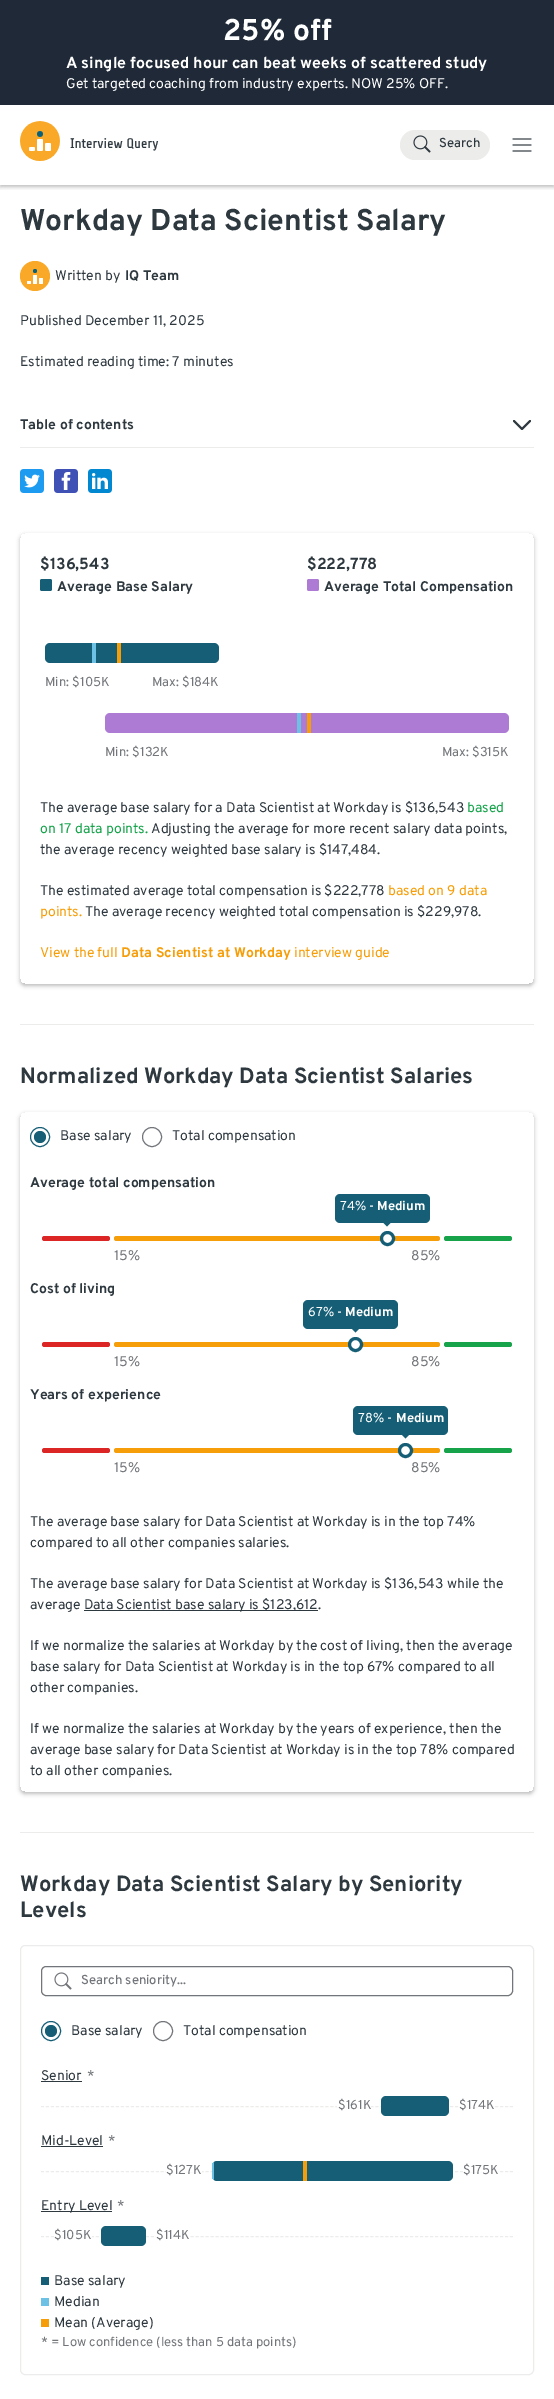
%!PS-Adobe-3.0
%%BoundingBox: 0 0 554 2399
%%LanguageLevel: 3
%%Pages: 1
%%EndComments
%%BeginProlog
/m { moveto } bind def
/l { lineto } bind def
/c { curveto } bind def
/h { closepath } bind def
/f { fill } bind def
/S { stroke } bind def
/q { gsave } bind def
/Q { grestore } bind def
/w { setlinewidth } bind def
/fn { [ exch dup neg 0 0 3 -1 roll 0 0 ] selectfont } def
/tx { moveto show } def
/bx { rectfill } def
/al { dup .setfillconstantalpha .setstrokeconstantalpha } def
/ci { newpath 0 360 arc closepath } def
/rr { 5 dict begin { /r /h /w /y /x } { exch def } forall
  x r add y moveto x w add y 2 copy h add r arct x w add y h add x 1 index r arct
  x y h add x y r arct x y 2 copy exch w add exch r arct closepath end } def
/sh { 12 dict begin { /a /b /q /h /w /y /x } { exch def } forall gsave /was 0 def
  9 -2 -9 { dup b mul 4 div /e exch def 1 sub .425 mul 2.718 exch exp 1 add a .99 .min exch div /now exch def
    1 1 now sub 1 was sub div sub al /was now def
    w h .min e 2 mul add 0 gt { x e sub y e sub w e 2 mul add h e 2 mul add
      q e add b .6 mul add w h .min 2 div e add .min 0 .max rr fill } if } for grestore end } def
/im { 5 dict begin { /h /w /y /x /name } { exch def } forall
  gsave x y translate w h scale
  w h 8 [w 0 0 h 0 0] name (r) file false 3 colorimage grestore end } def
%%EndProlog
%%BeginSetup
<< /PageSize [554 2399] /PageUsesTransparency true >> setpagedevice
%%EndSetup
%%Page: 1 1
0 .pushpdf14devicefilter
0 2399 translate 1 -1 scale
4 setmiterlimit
1 setgray
0 0 554 2399 bx
q
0 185 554 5 rectclip
0 setgray
0 2 554 185 0 2 0.25 sh
Q
0.122 0.161 0.216 setrgbcolor
0 0 554 105 bx
/Overpass-Bold 30 fn
1 setgray
(25% off) 223 40 tx
/Overpass-Bold 16 fn
(A single focused hour can beat weeks of scattered study) 66 68 tx
/Overpass-Regular 14 fn
(Get targeted coaching from industry experts. NOW 25% OFF.) 66 88 tx
(image0.raw) 20 121 139 40 im
0.925 0.925 0.922 setrgbcolor
400 130 90 30 15 rr f
(image1.raw) 413 135 18 18 im
/Overpass-Medium 13 fn
0.18 0.22 0.247 setrgbcolor
(Search) 439 147 tx
(image2.raw) 512 138 20 14 im
/Overpass-Bold 30 fn
(Workday Data Scientist Salary) 20 230 tx
0.976 0.659 0.157 setrgbcolor
35 276 15 ci f
1 setgray
33 275 4 9 1 rr f
27 281 4 3 1 rr f
39 278 4 6 1 rr f
0.027 0.38 0.49 setrgbcolor
35 271 2 ci f
/Overpass-Regular 14 fn
0.18 0.22 0.247 setrgbcolor
(Written by) 55 280 tx
/Overpass-Bold 14 fn
(IQ Team) 125 280 tx
/Overpass-Regular 14 fn
(Published December 11, 2025) 20 325 tx
(Estimated reading time: 7 minutes) 20 366 tx
0.925 0.925 0.922 setrgbcolor
20 447 514 1 bx
/Overpass-Bold 14 fn
0.18 0.22 0.247 setrgbcolor
(Table of contents) 20 429 tx
2 w
1 setlinecap
1 setlinejoin
514 421 m 522 429 l 530 421 l S
(image3.raw) 20 469 24 24 im
(image4.raw) 54 469 24 24 im
(image5.raw) 88 469 24 24 im
0.925 0.925 0.922 setrgbcolor
20 1024 514 1 bx
q
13 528 m 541 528 l 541 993 l 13 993 l h 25 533 m 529 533 l 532 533 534 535 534 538 c 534 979 l 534 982 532 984 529 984 c 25 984 l 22 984 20 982 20 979 c 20 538 l 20 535 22 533 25 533 c h eoclip newpath
0 setgray
20 535 514 451 5 2 0.25 sh
Q
/Overpass-Bold 16 fn
0.18 0.22 0.247 setrgbcolor
($136,543) 40 569 tx
0.082 0.369 0.459 setrgbcolor
40 579 12 12 2 rr f
/Overpass-Bold 14 fn
0.18 0.22 0.247 setrgbcolor
(Average Base Salary) 57 591 tx
/Overpass-Bold 16 fn
($222,778) 307 569 tx
0.678 0.478 0.831 setrgbcolor
307 579 12 12 2 rr f
/Overpass-Bold 14 fn
0.18 0.22 0.247 setrgbcolor
(Average Total Compensation) 324 591 tx
0.082 0.369 0.459 setrgbcolor
45 643 174 20 5 rr f
0.427 0.757 0.894 setrgbcolor
92 643 4 20 bx
0.961 0.62 0.035 setrgbcolor
117 643 4 20 bx
/Overpass-Regular 13 fn
0.447 0.459 0.475 setrgbcolor
(Min: $105K) 45 686 tx
(Max: $184K) 152 686 tx
0.678 0.478 0.831 setrgbcolor
105 713 404 20 5 rr f
0.427 0.757 0.894 setrgbcolor
297 713 4 20 bx
0.961 0.62 0.035 setrgbcolor
307 713 4 20 bx
0.447 0.459 0.475 setrgbcolor
(Min: $132K) 105 756 tx
(Max: $315K) 442 756 tx
/Overpass-Regular 14 fn
0.18 0.22 0.247 setrgbcolor
(The average base salary for a Data Scientist at Workday is $136,543) 40 812 tx
0.086 0.639 0.29 setrgbcolor
(based) 467 812 tx
(on 17 data points.) 40 833 tx
0.18 0.22 0.247 setrgbcolor
(Adjusting the average for more recent salary data points,) 151 833 tx
(the average recency weighted base salary is $147,484.) 40 854 tx
(The estimated average total compensation is $222,778) 40 895 tx
0.961 0.62 0.035 setrgbcolor
(based on 9 data) 388 895 tx
(points.) 40 916 tx
0.18 0.22 0.247 setrgbcolor
(The average recency weighted total compensation is $229,978.) 85 916 tx
0.961 0.62 0.035 setrgbcolor
(View the full) 40 957 tx
/Overpass-Bold 14 fn
(Data Scientist at Workday) 121 957 tx
/Overpass-Regular 14 fn
(interview guide) 294 957 tx
0.925 0.925 0.922 setrgbcolor
20 1832 514 1 bx
/Overpass-Bold 22 fn
0.18 0.22 0.247 setrgbcolor
(Normalized Workday Data Scientist Salaries) 20 1083 tx
q
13 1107 m 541 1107 l 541 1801 l 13 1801 l h 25 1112 m 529 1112 l 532 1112 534 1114 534 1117 c 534 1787 l 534 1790 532 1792 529 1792 c 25 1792 l 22 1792 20 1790 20 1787 c 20 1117 l 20 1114 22 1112 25 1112 c h eoclip newpath
0 setgray
20 1114 514 680 5 2 0.25 sh
Q
0.082 0.369 0.459 setrgbcolor
1 w
0 setlinecap
0 setlinejoin
40 1137 9.5 ci S
40 1137 6 ci f
/Overpass-Regular 14 fn
0.18 0.22 0.247 setrgbcolor
(Base salary) 60 1140 tx
0.447 0.459 0.475 setrgbcolor
152 1137 9.5 ci S
0.18 0.22 0.247 setrgbcolor
(Total compensation) 172 1140 tx
/Overpass-Bold 14 fn
(Average total compensation) 30 1187 tx
0.961 0.62 0.035 setrgbcolor
114 1236 326 5 2.5 rr f
1 setgray
387.5 1238.5 6 ci q f Q
0.082 0.369 0.459 setrgbcolor
3 w
S
335 1194 95 29 5 rr f
/Overpass-Regular 13 fn
1 setgray
(74% -) 340 1210 tx
/Overpass-Bold 13 fn
(Medium) 377 1210 tx
0.082 0.369 0.459 setrgbcolor
380 1219.5 m 394 1219.5 l 387 1226.5 l h f
0.863 0.149 0.149 setrgbcolor
42 1236 68 5 2.5 rr f
0.086 0.639 0.29 setrgbcolor
444 1236 68 5 2.5 rr f
/Overpass-Regular 14 fn
0.447 0.459 0.475 setrgbcolor
(15%) 114 1260 tx
(85%) 411 1260 tx
/Overpass-Bold 14 fn
0.18 0.22 0.247 setrgbcolor
(Cost of living) 30 1293 tx
0.961 0.62 0.035 setrgbcolor
114 1342 326 5 2.5 rr f
1 setgray
355.5 1344.5 6 ci q f Q
0.082 0.369 0.459 setrgbcolor
S
303 1300 95 29 5 rr f
/Overpass-Regular 13 fn
1 setgray
(67% -) 308 1316 tx
/Overpass-Bold 13 fn
(Medium) 345 1316 tx
0.082 0.369 0.459 setrgbcolor
348.5 1325.5 m 362.5 1325.5 l 355.5 1332.5 l h f
0.863 0.149 0.149 setrgbcolor
42 1342 68 5 2.5 rr f
0.086 0.639 0.29 setrgbcolor
444 1342 68 5 2.5 rr f
/Overpass-Regular 14 fn
0.447 0.459 0.475 setrgbcolor
(15%) 114 1366 tx
(85%) 411 1366 tx
/Overpass-Bold 14 fn
0.18 0.22 0.247 setrgbcolor
(Years of experience) 30 1399 tx
0.961 0.62 0.035 setrgbcolor
114 1448 326 5 2.5 rr f
1 setgray
405.5 1450.5 6 ci q f Q
0.082 0.369 0.459 setrgbcolor
S
353 1406 95 29 5 rr f
/Overpass-Regular 13 fn
1 setgray
(78% -) 358 1422 tx
/Overpass-Bold 13 fn
(Medium) 396 1422 tx
0.082 0.369 0.459 setrgbcolor
398.5 1431.5 m 412.5 1431.5 l 405.5 1438.5 l h f
0.863 0.149 0.149 setrgbcolor
42 1448 68 5 2.5 rr f
0.086 0.639 0.29 setrgbcolor
444 1448 68 5 2.5 rr f
/Overpass-Regular 14 fn
0.447 0.459 0.475 setrgbcolor
(15%) 114 1472 tx
(85%) 411 1472 tx
0.18 0.22 0.247 setrgbcolor
(The average base salary for Data Scientist at Workday is in the top 74%) 30 1526 tx
(compared to all other companies salaries.) 30 1547 tx
(The average base salary for Data Scientist at Workday is $136,543 while the) 30 1588 tx
(average Data Scientist) 30 1609 tx
84 1610 234 1 bx
(base salary is $123,612.) 175 1609 tx
(If we normalize the salaries at Workday by the cost of living, then the average) 30 1650 tx
(base salary for Data Scientist at Workday is in the top 67% compared to all) 30 1671 tx
(other companies.) 30 1692 tx
(If we normalize the salaries at Workday by the years of experience, then the) 30 1733 tx
(average base salary for Data Scientist at Workday is in the top 78% compared) 30 1754 tx
(to all other companies.) 30 1775 tx
/Overpass-Bold 22 fn
(Workday Data Scientist Salary by Seniority) 20 1891 tx
(Levels) 20 1917 tx
0.925 0.925 0.922 setrgbcolor
1 w
20.5 1945.5 513 429 4.5 rr S
0.447 0.459 0.475 setrgbcolor
41.5 1966.5 471 29 4.5 rr S
(image6.raw) 54 1972 18 18 im
/Overpass-Medium 13 fn
(Search seniority...) 81 1984 tx
0.082 0.369 0.459 setrgbcolor
51 2031 9.5 ci S
51 2031 6 ci f
/Overpass-Regular 14 fn
0.18 0.22 0.247 setrgbcolor
(Base salary) 71 2035 tx
0.447 0.459 0.475 setrgbcolor
163 2031 9.5 ci S
0.18 0.22 0.247 setrgbcolor
(Total compensation) 183 2035 tx
(Senior) 41 2080 tx
41 2081 41 1 bx
0.447 0.459 0.475 setrgbcolor
(*) 87 2080 tx
0.925 0.925 0.922 setrgbcolor
[3 1.99] 0 setdash
41 2106.5 m 513 2106.5 l S
1 setgray
337 2106 34 1 bx
/Overpass-Regular 13 fn
0.447 0.459 0.475 setrgbcolor
($161K) 338 2109 tx
0.082 0.369 0.459 setrgbcolor
381 2096 68 20 5 rr f
1 setgray
460 2106 33 1 bx
0.447 0.459 0.475 setrgbcolor
($174K) 459 2109 tx
/Overpass-Regular 14 fn
0.18 0.22 0.247 setrgbcolor
(Mid-Level) 41 2145 tx
41 2146 62 1 bx
0.447 0.459 0.475 setrgbcolor
(*) 108 2145 tx
0.925 0.925 0.922 setrgbcolor
41 2171.5 m 513 2171.5 l S
1 setgray
166 2171 36 1 bx
/Overpass-Regular 13 fn
0.447 0.459 0.475 setrgbcolor
($127K) 166 2174 tx
0.082 0.369 0.459 setrgbcolor
212 2161 241 20 5 rr f
q
212 2161 241 20 5 rr clip newpath
0.427 0.757 0.894 setrgbcolor
212 2161 2 20 bx
Q
0.961 0.62 0.035 setrgbcolor
303 2161 4 20 bx
1 setgray
463 2171 35 1 bx
0.447 0.459 0.475 setrgbcolor
($175K) 463 2174 tx
0.18 0.22 0.247 setrgbcolor
41 2211 71 1 bx
/Overpass-Regular 14 fn
(Entry Level) 41 2210 tx
0.447 0.459 0.475 setrgbcolor
(*) 117 2210 tx
0.925 0.925 0.922 setrgbcolor
41 2236.5 m 513 2236.5 l S
1 setgray
56 2236 36 1 bx
/Overpass-Regular 13 fn
0.447 0.459 0.475 setrgbcolor
($105K) 54 2239 tx
0.082 0.369 0.459 setrgbcolor
101 2226 45 20 5 rr f
1 setgray
156 2236 33 1 bx
0.447 0.459 0.475 setrgbcolor
($114K) 156 2239 tx
0.082 0.369 0.459 setrgbcolor
41 2277 8 8 bx
/Overpass-Regular 14 fn
0.18 0.22 0.247 setrgbcolor
(Base salary) 54 2285 tx
0.427 0.757 0.894 setrgbcolor
41 2298 8 8 bx
0.18 0.22 0.247 setrgbcolor
(Median) 54 2306 tx
0.961 0.62 0.035 setrgbcolor
41 2319 8 8 bx
0.18 0.22 0.247 setrgbcolor
(Mean \(Average\)) 54 2327 tx
/Overpass-Regular 13 fn
0.447 0.459 0.475 setrgbcolor
(* = Low confidence \(less than 5 data points\)) 41 2346 tx
.poppdf14devicefilter showpage
%%EOF
